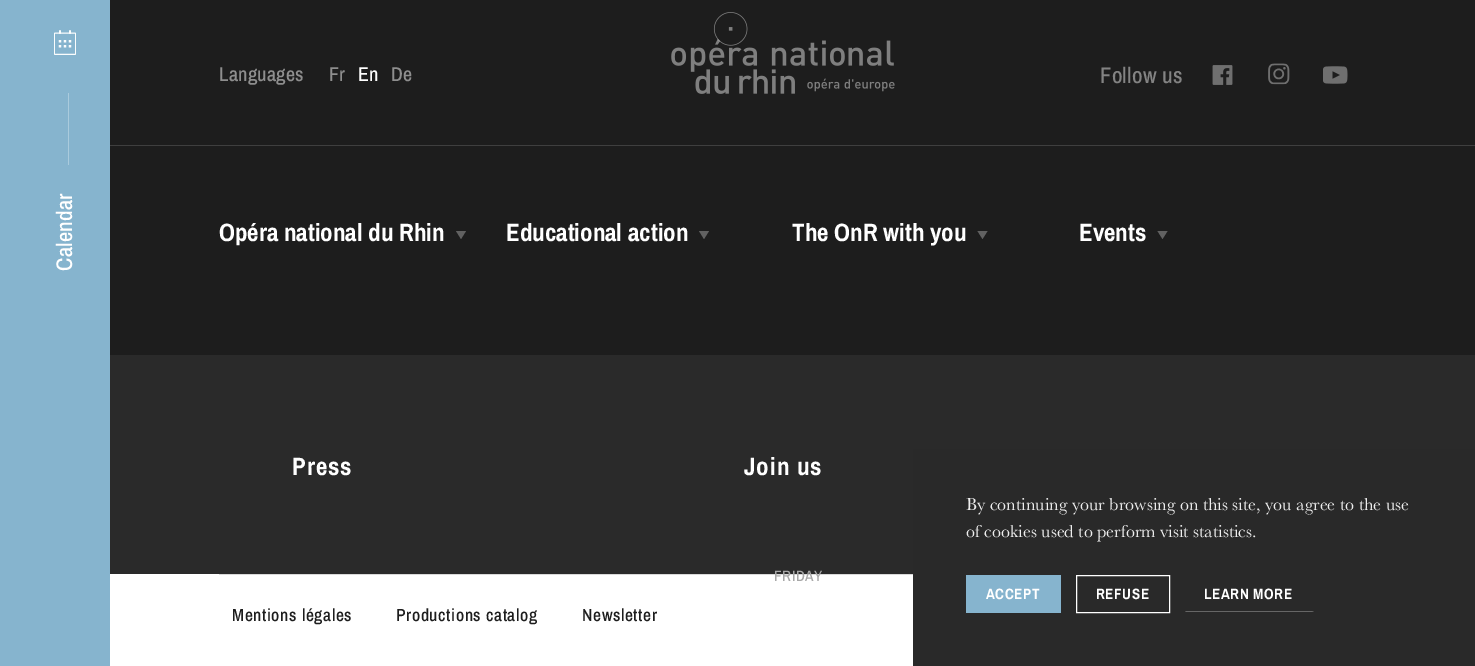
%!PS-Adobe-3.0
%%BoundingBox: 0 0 1475 666
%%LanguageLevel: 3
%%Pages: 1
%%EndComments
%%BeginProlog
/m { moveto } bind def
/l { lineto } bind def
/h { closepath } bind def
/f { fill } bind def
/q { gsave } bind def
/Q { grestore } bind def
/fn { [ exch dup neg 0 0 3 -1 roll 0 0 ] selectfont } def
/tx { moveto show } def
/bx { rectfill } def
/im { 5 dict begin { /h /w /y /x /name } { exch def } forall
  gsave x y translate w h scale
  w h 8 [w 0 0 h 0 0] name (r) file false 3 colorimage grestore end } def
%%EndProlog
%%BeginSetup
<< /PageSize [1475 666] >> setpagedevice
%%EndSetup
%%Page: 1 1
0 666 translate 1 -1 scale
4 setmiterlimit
1 setgray
0 0 1475 666 bx
0.114 setgray
110 0 1365 355 bx
/ArchivoNarrow-Medium 20 fn
0.557 setgray
219 81 m 0.25 0 (Languages) ashow
329 81 m 0.25 0 (Fr) ashow
1 setgray
358 81 m 0.25 0 (En) ashow
0.557 setgray
391 81 m 0.25 0 (De) ashow
(image0.raw) 671 12 224 82 im
/ArchivoNarrow-Medium 22.5 fn
0.514 setgray
1100 83 m 0.25 0 (Follow us) ashow
(image1.raw) 1212 65 21 20 im
(image2.raw) 1268 63 22 22 im
(image3.raw) 1323 66 25 18 im
0.247 setgray
110 145 1365 1 bx
/ArchivoNarrow-Bold 25 fn
1 setgray
(Opéra national du Rhin) 219 241 tx
0.38 setgray
456 231 m 466 231 l 461 239 l h f
1 setgray
(Educational action) 506 241 tx
0.38 setgray
699 231 m 709 231 l 704 239 l h f
1 setgray
(The OnR with you) 792 241 tx
0.38 setgray
977.5 231 m 987.5 231 l 982.5 239 l h f
1 setgray
(Events) 1079 241 tx
0.38 setgray
1157.5 231 m 1167.5 231 l 1162.5 239 l h f
0.165 setgray
1014 355 461 94 bx
110 355 904 219 bx
1 setgray
292 475 m 1 0 (Press) ashow
744 475 m 1 0 (Join us) ashow
0.851 setgray
219 574 694 1 bx
/ArchivoNarrow-Medium 17.5 fn
0.114 setgray
232 621 m 0.6 0 (Mentions légales) ashow
396 621 m 0.6 0 (Productions catalog) ashow
582 621 m 0.6 0 (Newsletter) ashow
0.525 0.706 0.808 setrgbcolor
0 0 110 666 bx
(image4.raw) 54 30 22 25 im
0.667 0.796 0.867 setrgbcolor
68 93 1 72 bx
/ArchivoNarrow-Medium 22.5 fn
1 setgray
q 72 271 translate -90 rotate 0 0 m 0.25 0 (Calendar) ashow Q
/ArchivoNarrow-Medium 15 fn
0.655 setgray
774 581 m 0.6 0 (FRIDAY) ashow
0.161 setgray
913 449 562 217 bx
/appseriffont-Regular 18 fn
0.933 setgray
(By continuing your browsing on this site, you agree to the use) 966 510 tx
(of cookies used to perform visit statistics.) 966 537 tx
0.525 0.706 0.808 setrgbcolor
966 575 95 38 bx
/ArchivoNarrow-Bold 15 fn
1 setgray
986 599 m 0.6 0 (ACCEPT) ashow
1076.5 575.5 93 37 rectstroke
1096 599 m 0.6 0 (REFUSE) ashow
0.4 setgray
1314 612 m 1185 612 l 1186 611 l 1312 611 l h f
1 setgray
1204 599 m 0.6 0 (LEARN MORE) ashow
showpage
%%EOF
